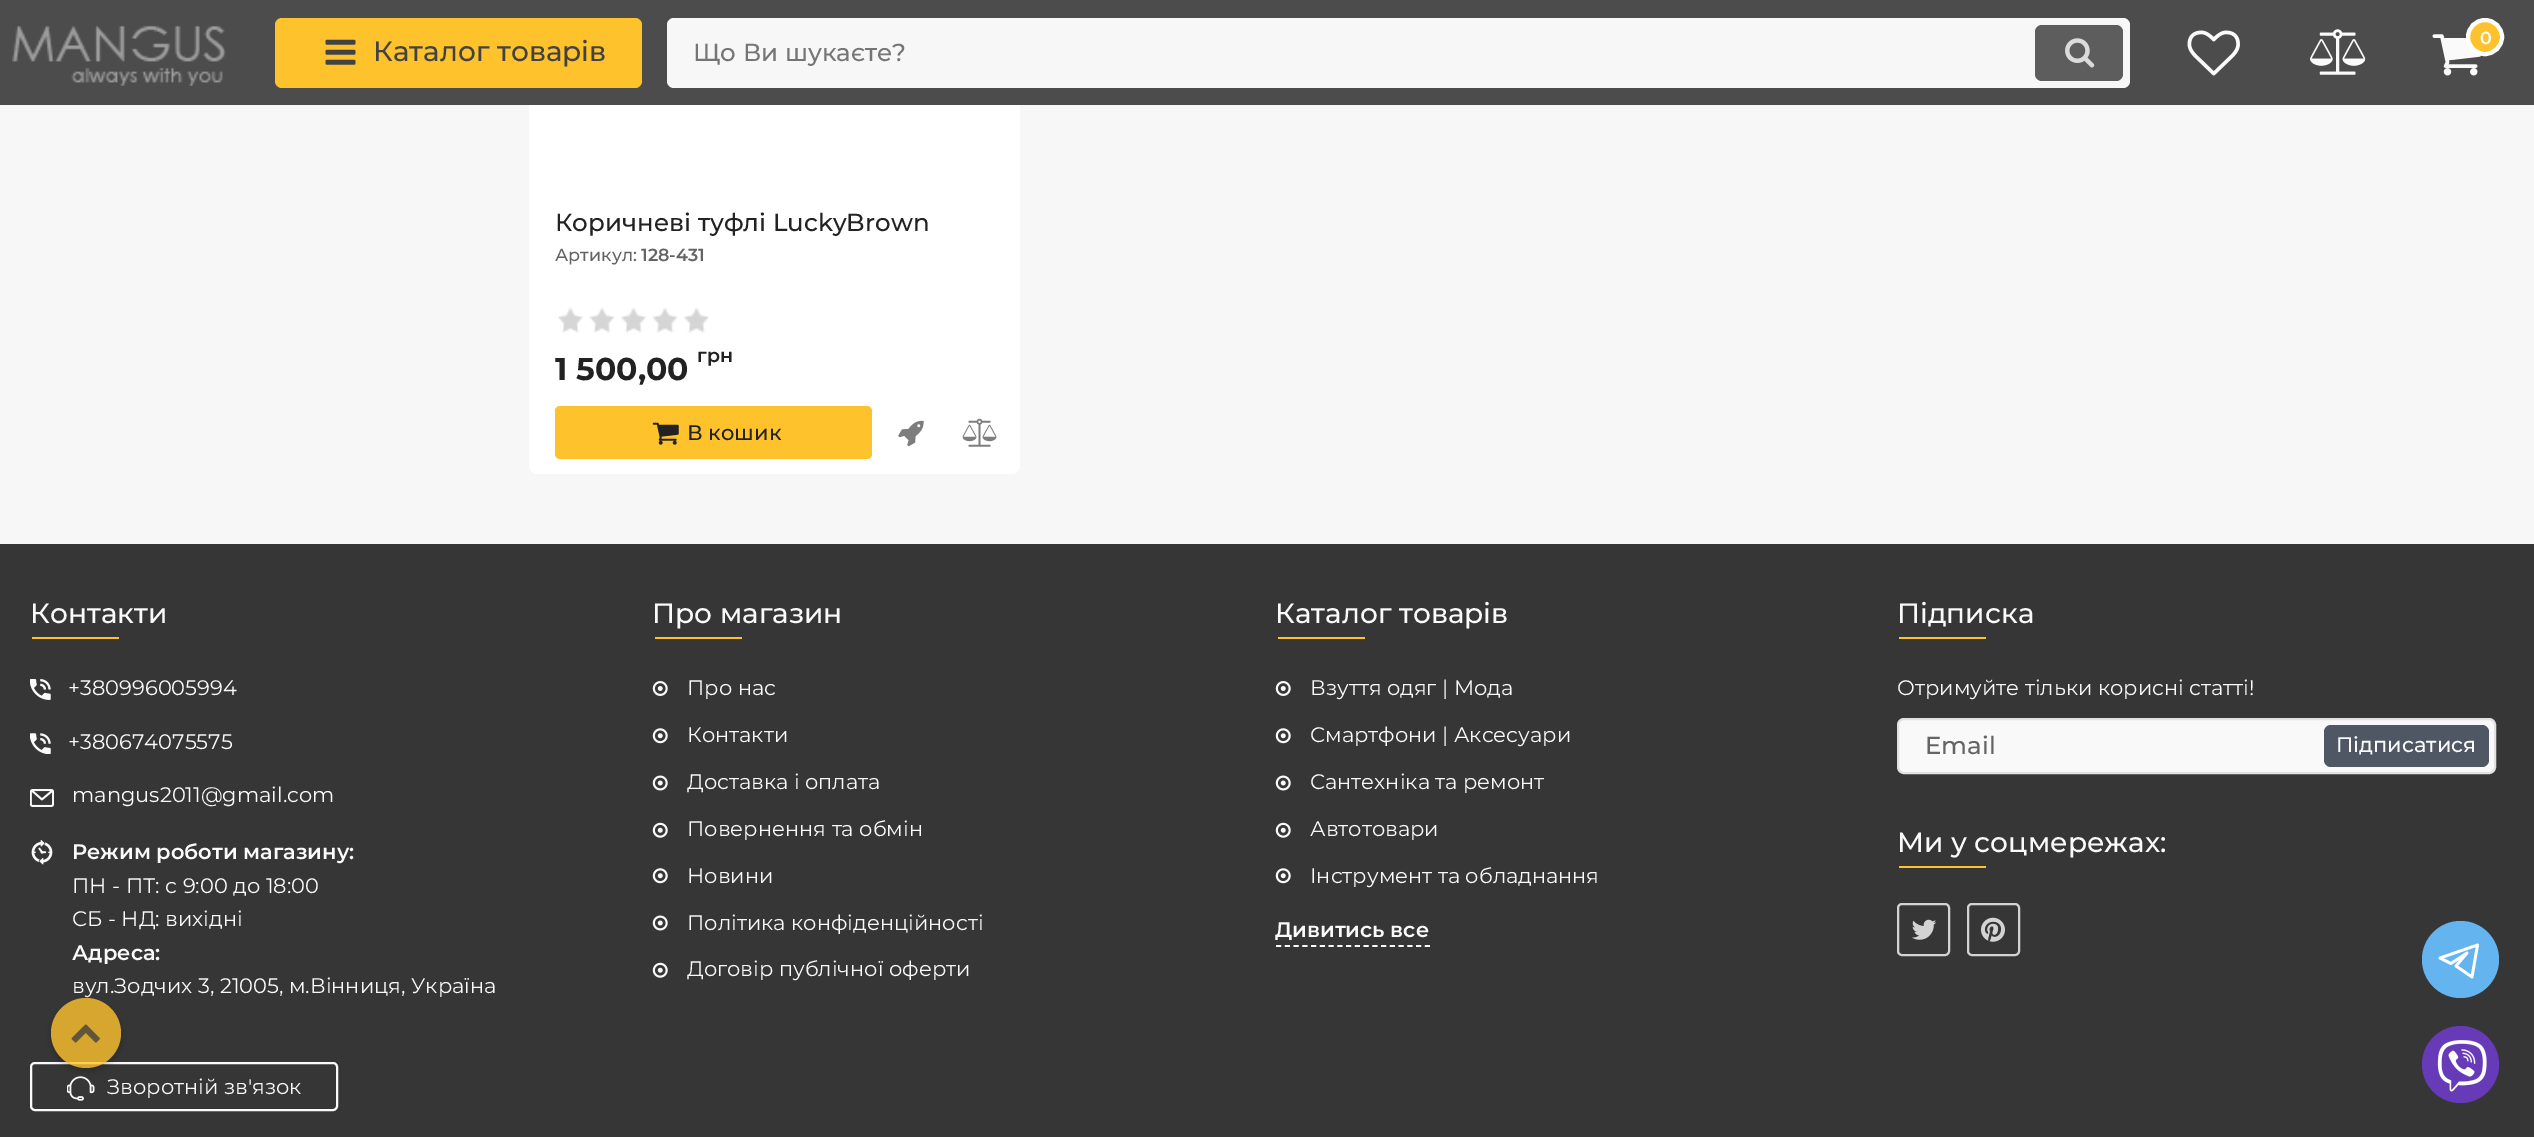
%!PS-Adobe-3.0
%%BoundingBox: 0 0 2534 1137
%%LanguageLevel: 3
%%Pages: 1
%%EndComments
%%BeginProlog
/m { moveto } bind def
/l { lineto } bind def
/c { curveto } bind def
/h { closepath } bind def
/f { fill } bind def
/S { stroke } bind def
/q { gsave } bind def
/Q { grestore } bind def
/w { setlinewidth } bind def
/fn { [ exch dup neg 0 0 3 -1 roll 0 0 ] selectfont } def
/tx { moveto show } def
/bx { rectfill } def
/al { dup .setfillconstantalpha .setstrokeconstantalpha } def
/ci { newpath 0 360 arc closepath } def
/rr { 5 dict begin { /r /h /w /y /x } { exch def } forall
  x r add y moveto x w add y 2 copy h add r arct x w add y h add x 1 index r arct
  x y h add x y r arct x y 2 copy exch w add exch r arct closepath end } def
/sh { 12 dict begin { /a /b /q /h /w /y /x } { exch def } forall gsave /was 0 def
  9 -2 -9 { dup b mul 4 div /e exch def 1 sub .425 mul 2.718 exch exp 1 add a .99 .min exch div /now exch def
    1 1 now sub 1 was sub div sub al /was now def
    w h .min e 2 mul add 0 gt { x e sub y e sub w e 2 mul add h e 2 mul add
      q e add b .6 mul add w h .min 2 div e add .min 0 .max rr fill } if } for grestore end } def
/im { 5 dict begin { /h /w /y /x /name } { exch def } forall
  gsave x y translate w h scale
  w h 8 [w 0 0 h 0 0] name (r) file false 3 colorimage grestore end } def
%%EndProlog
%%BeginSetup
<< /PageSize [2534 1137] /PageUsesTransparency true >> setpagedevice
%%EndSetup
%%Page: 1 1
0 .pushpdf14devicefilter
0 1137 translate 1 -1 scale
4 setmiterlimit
0.969 setgray
0 0 2534 1137 bx
1 setgray
529 -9 491 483 9 rr f
0.298 setgray
0 0 2534 105 bx
(image0.raw) 12 25 214 61 im
0.996 0.761 0.173 setrgbcolor
275 18 367 70 7 rr f
(image1.raw) 325 39 31 26 im
/Montserrat-Medium 28 fn
0.259 setgray
(Каталог товарів) 373 61 tx
0.969 setgray
667 18 1463 70 7 rr f
/Montserrat-Medium 24.5 fn
0.459 setgray
(Що Ви шукаєте?) 693 61 tx
0.365 setgray
2035 25 88 56 7 rr f
(image2.raw) 2065 38 30 30 im
(image3.raw) 2187 30 53 46 im
(image4.raw) 2310 29 56 46 im
(image5.raw) 2432 34 50 42 im
0.996 0.761 0.173 setrgbcolor
2485 37 17 ci q f Q
1 setgray
4 w
S
/Montserrat-SemiBold 17.5 fn
0.98 setgray
(0) 2480 44 tx
/Montserrat-Medium 24.5 fn
0.133 setgray
(Коричневі туфлі LuckyBrown) 555 231 tx
/Montserrat-Medium 17.5 fn
0.392 setgray
(Артикул:) 555 261 tx
/Montserrat-SemiBold 17.5 fn
(128-431) 641 261 tx
(image6.raw) 558 307 151 26 im
/Montserrat-Bold 31.5 fn
0.133 setgray
(1 500,00) 555 380 tx
/Montserrat-SemiBold 19 fn
(грн) 697 362 tx
0.996 0.761 0.173 setrgbcolor
555 406 317 53 5 rr f
(image7.raw) 652 422 27 23 im
/Montserrat-Medium 21 fn
0.133 setgray
(В кошик) 687 440 tx
(image8.raw) 898 420 26 27 im
(image9.raw) 962 418 35 29 im
0.212 setgray
0 544 2534 593 bx
/Montserrat-Medium 28 fn
0.98 setgray
(Контакти) 30 623 tx
0.996 0.761 0.173 setrgbcolor
32 637 87 2 bx
(image10.raw) 30 679 21 21 im
/Montserrat-Regular 21 fn
0.98 setgray
(+380996005994) 68 695 tx
(image11.raw) 30 733 21 21 im
(+380674075575) 68 749 tx
(image12.raw) 30 789 24 18 im
(mangus2011@gmail.com) 72 802 tx
(image13.raw) 31 840 22 25 im
/Montserrat-SemiBold 21 fn
(Режим роботи магазину:) 72 859 tx
/Montserrat-Regular 21 fn
(ПН - ПТ: с 9:00 до 18:00) 72 893 tx
(СБ - НД: вихідні) 72 926 tx
/Montserrat-SemiBold 21 fn
(Адреса:) 72 960 tx
/Montserrat-Regular 21 fn
(вул.Зодчих 3, 21005, м.Вінниця, Україна) 72 993 tx
2 w
31 1063 306 47 4 rr S
(image14.raw) 67 1076 28 25 im
(Зворотній зв'язок) 107 1094 tx
/Montserrat-Medium 28 fn
(Про магазин) 652 623 tx
0.996 0.761 0.173 setrgbcolor
655 637 87 2 bx
(image15.raw) 652 681 16 15 im
/Montserrat-Regular 21 fn
0.98 setgray
(Про нас) 687 695 tx
(image16.raw) 652 728 16 16 im
(Контакти) 687 742 tx
(image17.raw) 652 775 16 16 im
(Доставка і оплата) 687 789 tx
(image18.raw) 652 822 16 16 im
(Повернення та обмін) 687 836 tx
(image16.raw) 652 868 16 16 im
(Новини) 687 883 tx
(image17.raw) 652 915 16 16 im
(Політика конфіденційності) 687 930 tx
(image18.raw) 652 962 16 16 im
(Договір публічної оферти) 687 976 tx
/Montserrat-Medium 28 fn
(Каталог товарів) 1275 623 tx
0.996 0.761 0.173 setrgbcolor
1278 637 87 2 bx
(image15.raw) 1275 681 16 15 im
/Montserrat-Regular 21 fn
0.98 setgray
(Взуття одяг | Мода) 1310 695 tx
(image16.raw) 1275 728 16 16 im
(Смартфони | Аксесуари) 1310 742 tx
(image17.raw) 1275 775 16 16 im
(Сантехніка та ремонт) 1310 789 tx
(image18.raw) 1275 822 16 16 im
(Автотовари) 1310 836 tx
(image16.raw) 1275 868 16 16 im
(Інструмент та обладнання) 1310 883 tx
1.8 w
[5.25 3.5] 0 setdash
1276 946 m 1430 946 l S
/Montserrat-SemiBold 21 fn
(Дивитись все) 1275 937 tx
/Montserrat-Medium 28 fn
(Підписка) 1897 623 tx
0.996 0.761 0.173 setrgbcolor
1899 637 87 2 bx
/Montserrat-Regular 21 fn
0.98 setgray
(Отримуйте тільки корисні статті!) 1897 695 tx
0.976 setgray
1898 719 597 54 6 rr q f Q
0.882 setgray
2 w
[] 0 setdash
S
/Montserrat-Medium 24.5 fn
0.392 setgray
(Email) 1925 754 tx
0.306 0.341 0.388 setrgbcolor
2324 725 165 42 7 rr f
/Montserrat-Medium 21 fn
0.98 setgray
(Підписатися) 2336 752 tx
/Montserrat-Medium 28 fn
(Ми у соцмережах:) 1897 852 tx
0.996 0.761 0.173 setrgbcolor
1899 866 87 2 bx
0.827 setgray
1898 904 51 51 4 rr S
(image19.raw) 1911 919 26 21 im
1968 904 51 51 4 rr S
(image20.raw) 1981 917 24 25 im
0.392 0.71 0.937 setrgbcolor
2460.5 959.5 38.5 ci f
1 setgray
2.7 w
1 setlinejoin
2477.5 945 m 2440 958 l 2451 963.5 l 2467 953 l 2456 966 l 2472 977 l h S
q
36 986 m 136 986 l 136 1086 l 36 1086 l h 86 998 m 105.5 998 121 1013.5 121 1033 c 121 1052.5 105.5 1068 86 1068 c 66.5 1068 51 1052.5 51 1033 c 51 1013.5 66.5 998 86 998 c h eoclip newpath
0 setgray
51 1001 70 70 35 4.5 0.24 sh
Q
0.8 al
0.996 0.761 0.173 setrgbcolor
86 1033 35 ci f
1 al
(image21.raw) 71 1024 29 19 im
0.404 0.227 0.718 setrgbcolor
2460.5 1064.5 38.5 ci f
(image22.raw) 2437 1040 50 52 im
.poppdf14devicefilter showpage
%%EOF
